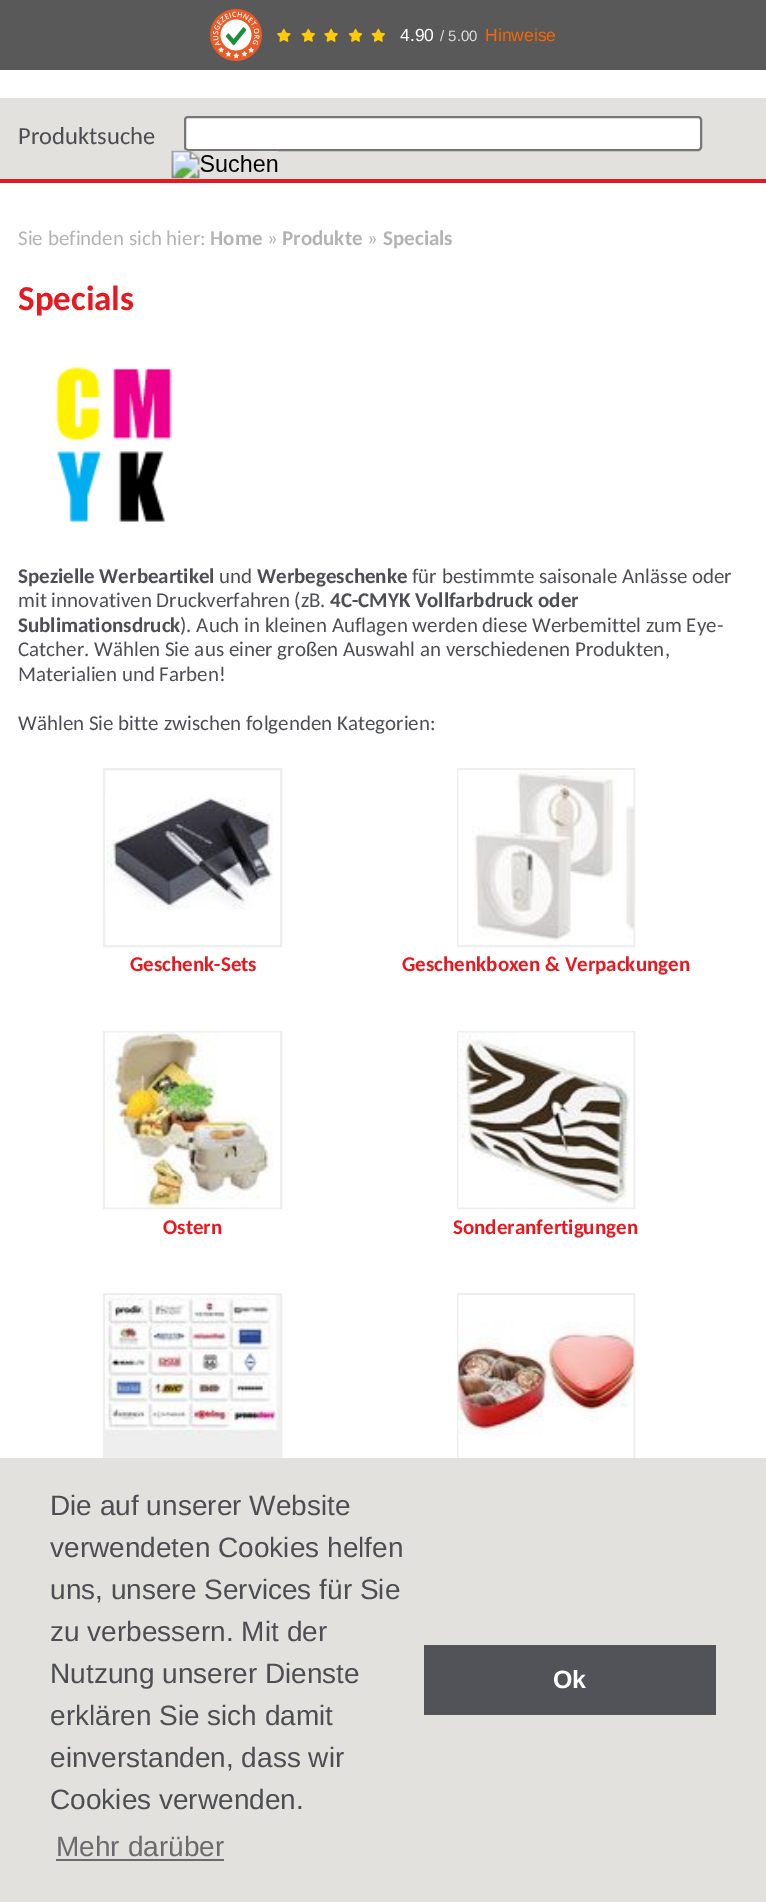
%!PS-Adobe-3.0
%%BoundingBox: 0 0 766 1902
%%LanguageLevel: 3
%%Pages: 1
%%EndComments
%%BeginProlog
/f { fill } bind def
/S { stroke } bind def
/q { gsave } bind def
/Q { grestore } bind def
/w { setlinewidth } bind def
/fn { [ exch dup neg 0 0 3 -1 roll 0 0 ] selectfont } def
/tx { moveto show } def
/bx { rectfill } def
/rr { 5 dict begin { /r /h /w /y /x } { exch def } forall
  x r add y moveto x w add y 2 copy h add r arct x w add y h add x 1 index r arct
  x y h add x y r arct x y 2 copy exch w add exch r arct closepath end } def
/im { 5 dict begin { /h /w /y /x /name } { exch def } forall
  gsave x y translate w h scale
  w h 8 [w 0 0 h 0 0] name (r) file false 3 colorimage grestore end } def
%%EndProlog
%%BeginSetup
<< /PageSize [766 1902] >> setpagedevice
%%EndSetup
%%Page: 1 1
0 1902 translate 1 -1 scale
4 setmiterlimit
1 setgray
0 0 766 1902 bx
0.349 setgray
0 0 766 70 bx
(image0.raw) 210 9 52 52 im
(image1.raw) 277 28 14 14 im
(image2.raw) 301 28 14 14 im
(image3.raw) 324 28 14 14 im
(image4.raw) 348 28 14 14 im
(image2.raw) 371 28 14 14 im
/LiberationSans-Regular 17.5 fn
1 setgray
(4.90) 400 41 tx
/LiberationSans-Regular 15 fn
0.871 setgray
(/ 5.00) 440 41 tx
/LiberationSans-Regular 17.5 fn
0.973 0.4 0.012 setrgbcolor
(Hinweise) 485 41 tx
0.886 0.882 0.867 setrgbcolor
0 98 766 81 bx
0.906 0.098 0.125 setrgbcolor
0 179 766 4 bx
/Carlito-Regular 24.5 fn
0.302 0.306 0.325 setrgbcolor
(Produktsuche) 18 144 tx
1 setgray
185 117 516 33 3 rr q f Q
0.463 setgray
2 w
S
(image5.raw) 171 150 107 29 im
/Carlito-Regular 21 fn
0.702 setgray
(Sie befinden sich hier:) 18 245 tx
/Carlito-Bold 21 fn
(Home) 210 245 tx
/Carlito-Regular 21 fn
(») 267 245 tx
/Carlito-Bold 21 fn
(Produkte) 282 245 tx
/Carlito-Regular 21 fn
(») 367 245 tx
/Carlito-Bold 21 fn
(Specials) 383 245 tx
/Carlito-Bold 35 fn
0.906 0.098 0.125 setrgbcolor
(Specials) 18 310 tx
(image6.raw) 55 367 117 156 im
/Carlito-Bold 21 fn
0.302 0.306 0.325 setrgbcolor
(Spezielle Werbeartikel) 18 583 tx
/Carlito-Regular 21 fn
(und) 219 583 tx
/Carlito-Bold 21 fn
(Werbegeschenke) 257 583 tx
/Carlito-Regular 21 fn
(für bestimmte saisonale Anlässe oder) 412 583 tx
(mit innovativen Druckverfahren \(zB.) 18 607 tx
/Carlito-Bold 21 fn
(4C-CMYK Vollfarbdruck oder) 330 607 tx
(Sublimationsdruck) 18 632 tx
/Carlito-Regular 21 fn
(\). Auch in kleinen Auflagen werden diese Werbemittel zum Eye-) 180 632 tx
(Catcher. Wählen Sie aus einer großen Auswahl an verschiedenen Produkten,) 18 656 tx
(Materialien und Farben!) 18 681 tx
(Wählen Sie bitte zwischen folgenden Kategorien:) 18 730 tx
0.933 setgray
104 769 177 177 rectstroke
(image7.raw) 105 797 169 113 im
/Carlito-Bold 21 fn
0.906 0.098 0.125 setrgbcolor
(Geschenk-Sets) 130 971 tx
0.933 setgray
458 769 176 177 rectstroke
(image8.raw) 458 770 176 175 im
0.906 0.098 0.125 setrgbcolor
(Geschenkboxen & Verpackungen) 402 971 tx
0.933 setgray
104 1032 177 176 rectstroke
(image9.raw) 105 1032 175 176 im
0.906 0.098 0.125 setrgbcolor
(Ostern) 163 1234 tx
0.933 setgray
458 1032 176 176 rectstroke
(image10.raw) 458 1032 176 176 im
0.906 0.098 0.125 setrgbcolor
(Sonderanfertigungen) 453 1234 tx
0.933 setgray
104 1294 177 177 rectstroke
(image11.raw) 105 1295 175 163 im
458 1294 176 177 rectstroke
(image12.raw) 458 1295 176 163 im
0.886 0.882 0.867 setrgbcolor
0 1458 766 444 bx
/LiberationSans-Regular 28 fn
0.302 0.306 0.325 setrgbcolor
(Die auf unserer Website) 50 1515 tx
(verwendeten Cookies helfen) 50 1557 tx
(uns, unsere Services für Sie) 50 1599 tx
(zu verbessern. Mit der) 50 1641 tx
(Nutzung unserer Dienste) 50 1683 tx
(erklären Sie sich damit) 50 1725 tx
(einverstanden, dass wir) 50 1767 tx
(Cookies verwenden.) 50 1809 tx
0.42 0.42 0.435 setrgbcolor
(Mehr darüber) 56 1856 tx
56 1859 168 2 bx
0.322 0.325 0.345 setrgbcolor
424 1645 292 70 bx
/LiberationSans-Bold 25 fn
1 setgray
(Ok) 553 1688 tx
showpage
%%EOF
